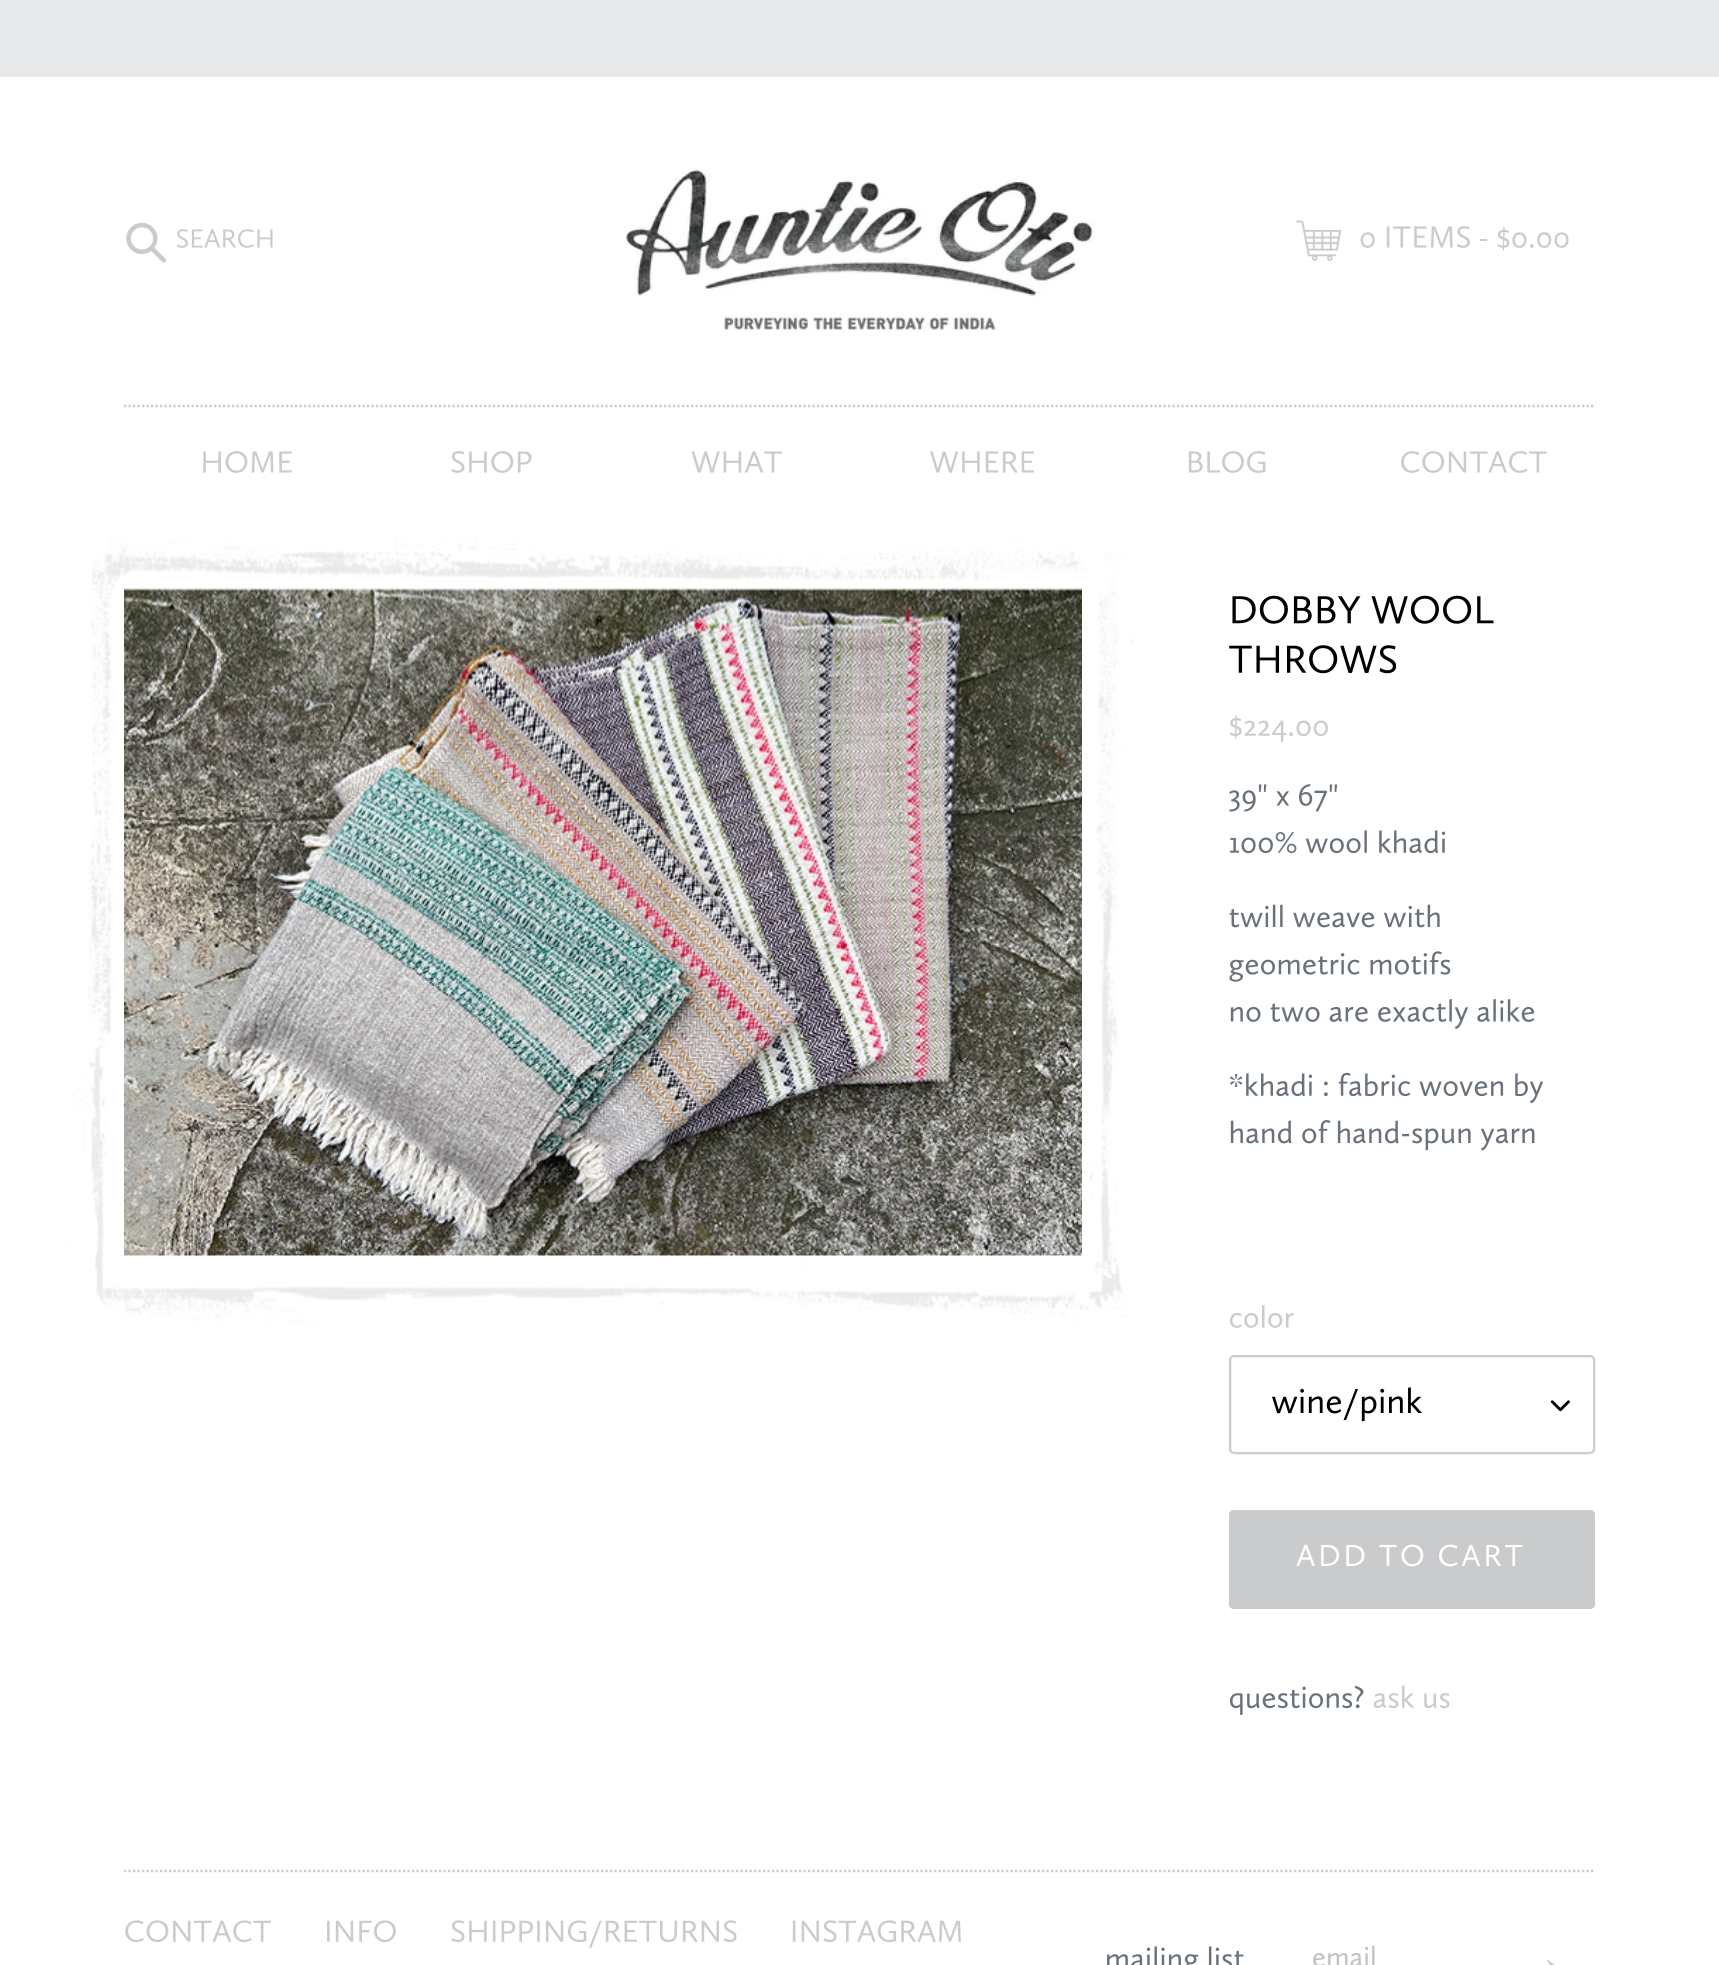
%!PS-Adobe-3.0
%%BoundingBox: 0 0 1719 1965
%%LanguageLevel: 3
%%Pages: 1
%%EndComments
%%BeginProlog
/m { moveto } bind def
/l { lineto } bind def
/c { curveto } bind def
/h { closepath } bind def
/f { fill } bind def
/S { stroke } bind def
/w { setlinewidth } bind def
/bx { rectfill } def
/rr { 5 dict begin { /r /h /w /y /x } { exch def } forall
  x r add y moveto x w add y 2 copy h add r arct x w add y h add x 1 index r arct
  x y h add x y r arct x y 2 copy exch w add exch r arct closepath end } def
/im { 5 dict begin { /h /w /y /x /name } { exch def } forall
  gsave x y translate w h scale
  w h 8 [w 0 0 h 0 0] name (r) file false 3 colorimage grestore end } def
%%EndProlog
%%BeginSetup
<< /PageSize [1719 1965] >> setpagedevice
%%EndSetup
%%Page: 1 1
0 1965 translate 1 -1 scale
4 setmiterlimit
1 setgray
0 0 1719 1965 bx
0.91 0.914 0.922 setrgbcolor
0 0 1719 77 bx
0.8 setgray
2.2 w
[2.25 2.25] 0 setdash
124 406 m 1595 406 l S
(image0.raw) 126 222 41 41 im
(image1.raw) 177 229 96 19 im
(image2.raw) 625 166 468 164 im
(image3.raw) 1296 220 45 41 im
(image4.raw) 1360 232 15 16 im
(image5.raw) 1386 226 84 22 im
0.788 0.796 0.8 setrgbcolor
1480 239 7 2 bx
(image6.raw) 1497 227 72 24 im
(image7.raw) 203 451 89 22 im
(image8.raw) 451 451 81 22 im
(image9.raw) 691 451 91 22 im
(image10.raw) 930 451 104 22 im
(image11.raw) 1188 451 78 22 im
(image12.raw) 1401 451 146 22 im
(image14.raw) 124 588 958 668 im
(image13.raw) 68 534 1070 795 im
(image15.raw) 1232 595 262 29 im
(image16.raw) 1229 645 168 29 im
(image17.raw) 1229 715 99 27 im
(image18.raw) 1229 784 109 28 im
(image19.raw) 1230 830 216 24 im
(image20.raw) 1229 904 211 24 im
(image21.raw) 1229 951 222 31 im
(image22.raw) 1230 999 305 30 im
(image23.raw) 1230 1072 314 32 im
(image24.raw) 1230 1120 305 31 im
(image25.raw) 1229 1305 65 23 im
(image26.raw) 1550 1400 20 12 im
0.8 setgray
2 w
[] 0 setdash
1230 1356 364 97 4 rr S
(image27.raw) 1272 1387 150 35 im
0.788 0.796 0.8 setrgbcolor
1229 1510 366 99 5 rr f
(image28.raw) 1296 1544 227 23 im
(image29.raw) 1229 1685 135 30 im
(image30.raw) 1373 1685 77 24 im
0.8 setgray
2.2 w
[2.25 2.25] 0 setdash
124 1871 m 1595 1871 l S
(image31.raw) 125 1920 146 23 im
(image32.raw) 327 1920 69 23 im
(image33.raw) 451 1920 286 28 im
(image34.raw) 792 1920 169 23 im
(image35.raw) 1107 1946 137 19 im
(image36.raw) 1313 1945 62 20 im
0.788 0.796 0.8 setrgbcolor
1548 1960 m 1551 1962 1554 1965 1557 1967 c 1557 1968 l 1554 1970 1551 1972 1548 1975 c 1547 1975 l 1551 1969 l 1516 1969 l 1516 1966 l 1551 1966 l 1547 1960 l h eofill
showpage
%%EOF
